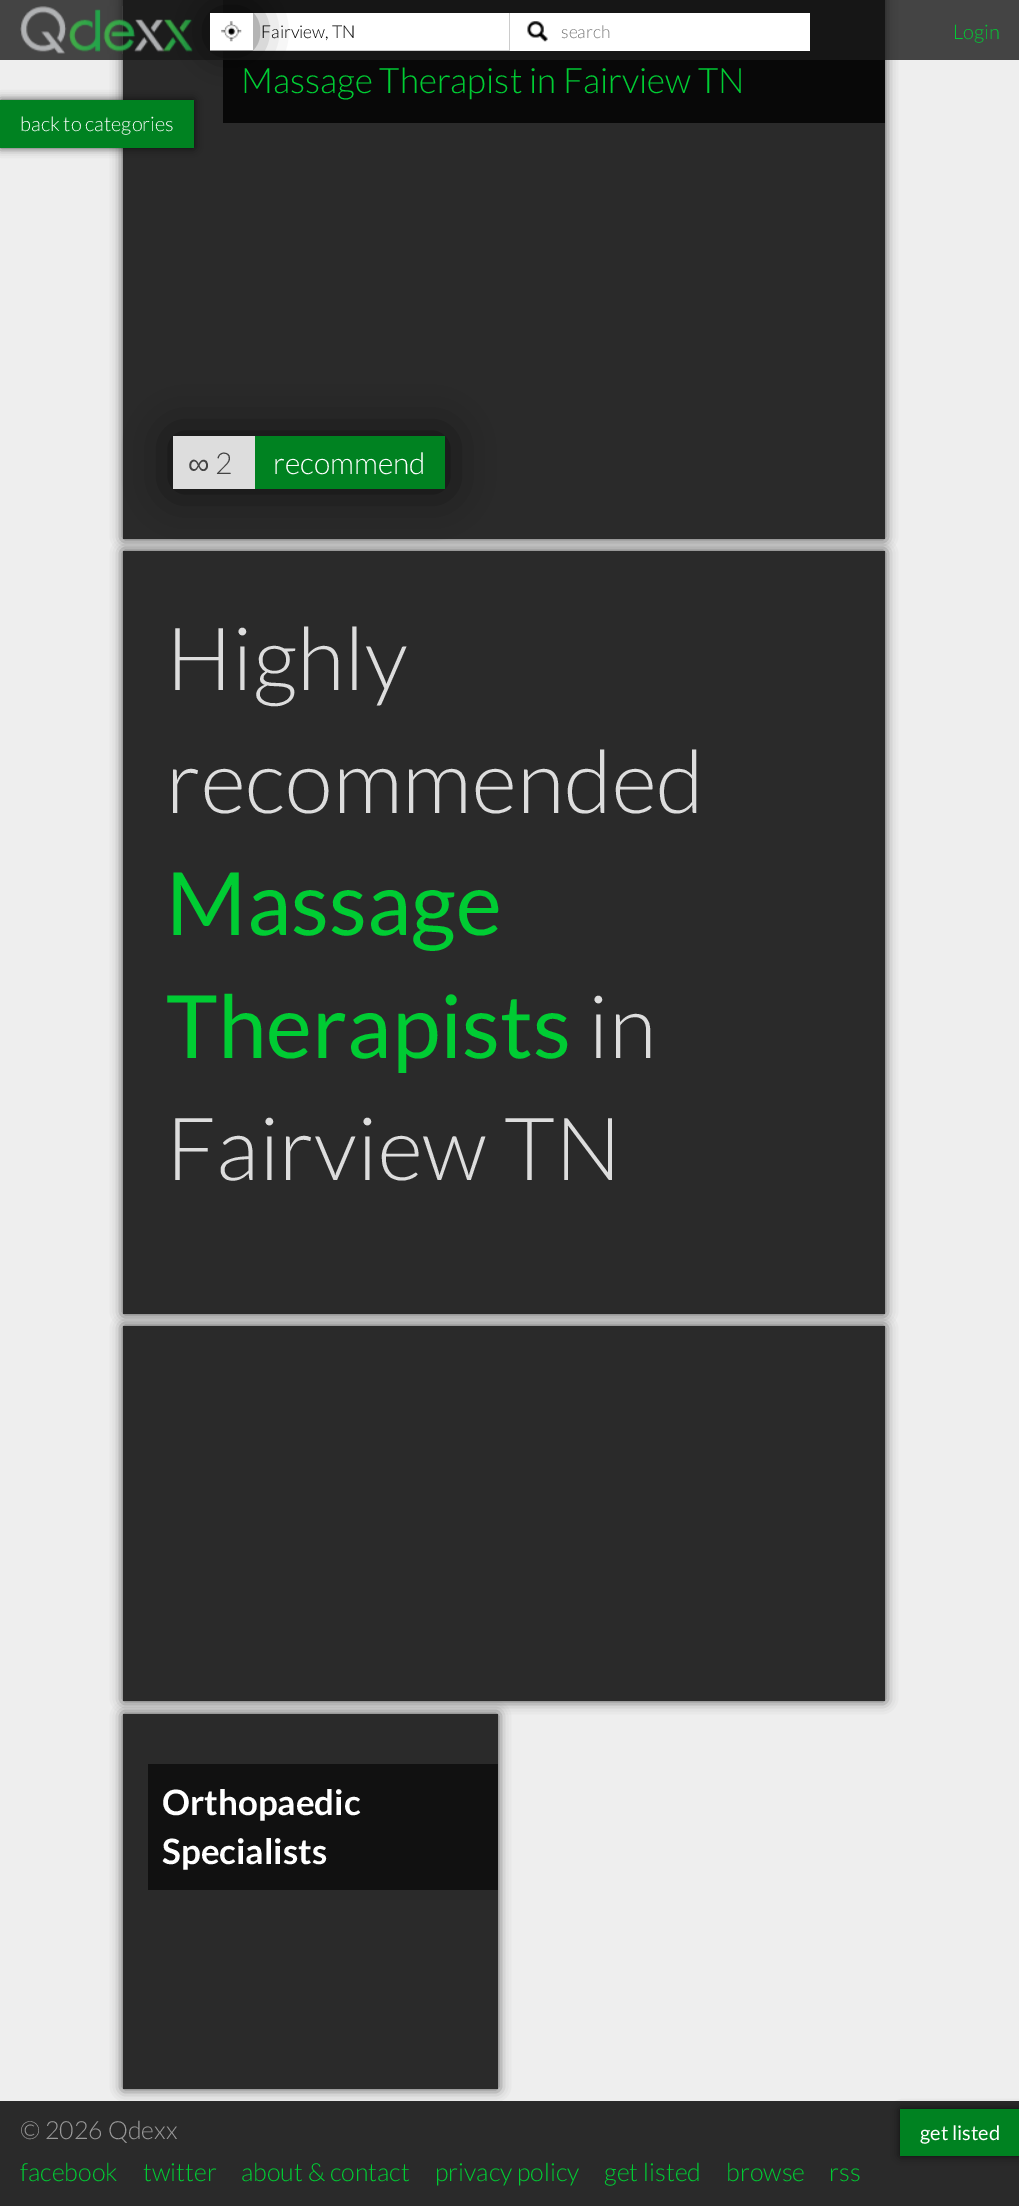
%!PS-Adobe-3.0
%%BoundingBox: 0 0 1019 2206
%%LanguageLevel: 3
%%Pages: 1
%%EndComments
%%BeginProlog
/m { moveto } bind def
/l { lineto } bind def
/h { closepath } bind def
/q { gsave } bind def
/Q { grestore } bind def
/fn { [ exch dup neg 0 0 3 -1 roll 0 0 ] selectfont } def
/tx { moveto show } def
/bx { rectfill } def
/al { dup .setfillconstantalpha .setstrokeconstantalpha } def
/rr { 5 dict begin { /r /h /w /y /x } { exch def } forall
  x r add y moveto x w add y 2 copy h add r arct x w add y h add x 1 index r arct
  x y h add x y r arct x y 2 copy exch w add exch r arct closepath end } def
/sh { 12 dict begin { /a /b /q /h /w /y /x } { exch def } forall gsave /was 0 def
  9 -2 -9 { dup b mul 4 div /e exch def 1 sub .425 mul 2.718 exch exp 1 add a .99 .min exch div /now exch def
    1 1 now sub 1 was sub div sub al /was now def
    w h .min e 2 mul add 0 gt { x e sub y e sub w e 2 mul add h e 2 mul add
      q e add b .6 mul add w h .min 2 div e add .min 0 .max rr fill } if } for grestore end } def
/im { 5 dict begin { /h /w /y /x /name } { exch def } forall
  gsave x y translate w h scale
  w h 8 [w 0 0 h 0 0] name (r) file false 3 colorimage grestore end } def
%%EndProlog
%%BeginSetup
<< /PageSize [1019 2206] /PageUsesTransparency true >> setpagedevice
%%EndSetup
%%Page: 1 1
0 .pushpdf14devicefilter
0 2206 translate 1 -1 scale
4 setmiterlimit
0.933 setgray
0 0 1019 2206 bx
0 setgray
123 -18 762 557 0 6 0.7 sh
0.165 setgray
123 0 762 539 bx
0.031 setgray
223 0 662 123 bx
0.8 al
0.098 setgray
0 0 1019 60 bx
1 al
(image0.raw) 20 6 173 48 im
1 setgray
510 13 300 38 bx
0.8 setgray
509 13 1 38 bx
210 50 300 1 bx
1 setgray
210 13 299 37 bx
0 setgray
0 100 194 48 0 4.5 0.7 sh
0 0.51 0.129 setrgbcolor
0 100 194 48 bx
q
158 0 m 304 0 l 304 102 l 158 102 l h 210 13 m 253 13 l 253 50 l 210 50 l h eoclip newpath
0 setgray
216 19 30 25 0 19 1 sh
Q
(image1.raw) 221 21 21 21 im
/Lato-Light 17.5 fn
0 setgray
(Fairview, TN) 261 38 tx
(image2.raw) 527 21 21 21 im
0.459 setgray
(search) 561 38 tx
/Lato-Light 20 fn
0 0.8 0.2 setrgbcolor
(Login) 953 39 tx
1 setgray
(back to categories) 20 131 tx
/Lato-Light 35 fn
0 0.8 0.2 setrgbcolor
(Massage Therapist in Fairview TN) 241 93 tx
0 setgray
123 551 762 763 0 6 0.7 sh
0.165 setgray
123 551 762 763 bx
0 setgray
173 436 272 53 0 23 0.7 sh
0.867 setgray
173 436 82 53 bx
/LiberationSans-Regular 30 fn
0.267 setgray
(∞) 188 474 tx
/Lato-Light 30 fn
(2) 215 474 tx
0 0.51 0.129 setrgbcolor
255 436 190 53 bx
1 setgray
(recommend) 273 474 tx
/Lato-Light 87.5 fn
0.867 setgray
(Highly) 166 690 tx
(recommended) 166 813 tx
/Lato-Regular 87.5 fn
0 0.8 0.2 setrgbcolor
(Massage) 166 935 tx
(Therapists) 166 1058 tx
/Lato-Light 87.5 fn
0.867 setgray
(in) 588 1058 tx
(Fairview TN) 166 1180 tx
0 setgray
123 1326 762 375 0 6 0.7 sh
0.165 setgray
123 1326 762 375 bx
0 setgray
123 1714 375 375 0 6 0.7 sh
0.165 setgray
123 1714 375 375 bx
0.067 setgray
148 1764 350 126 bx
/Lato-Bold 35 fn
1 setgray
(Orthopaedic) 162 1815 tx
(Specialists) 162 1864 tx
0.165 setgray
0 2101 1019 105 bx
/Lato-Light 25 fn
0.6 setgray
(© 2026 Qdexx) 20 2139 tx
0 0.8 0.2 setrgbcolor
(facebook) 20 2181 tx
(twitter) 143 2181 tx
(about & contact) 241 2181 tx
(privacy policy) 435 2181 tx
(get listed) 604 2181 tx
(browse) 726 2181 tx
(rss) 829 2181 tx
0 setgray
900 2109 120 47 0 4.5 0.7 sh
0 0.51 0.129 setrgbcolor
900 2109 119 47 bx
/Lato-Regular 20 fn
1 setgray
(get listed) 920 2140 tx
.poppdf14devicefilter showpage
%%EOF
